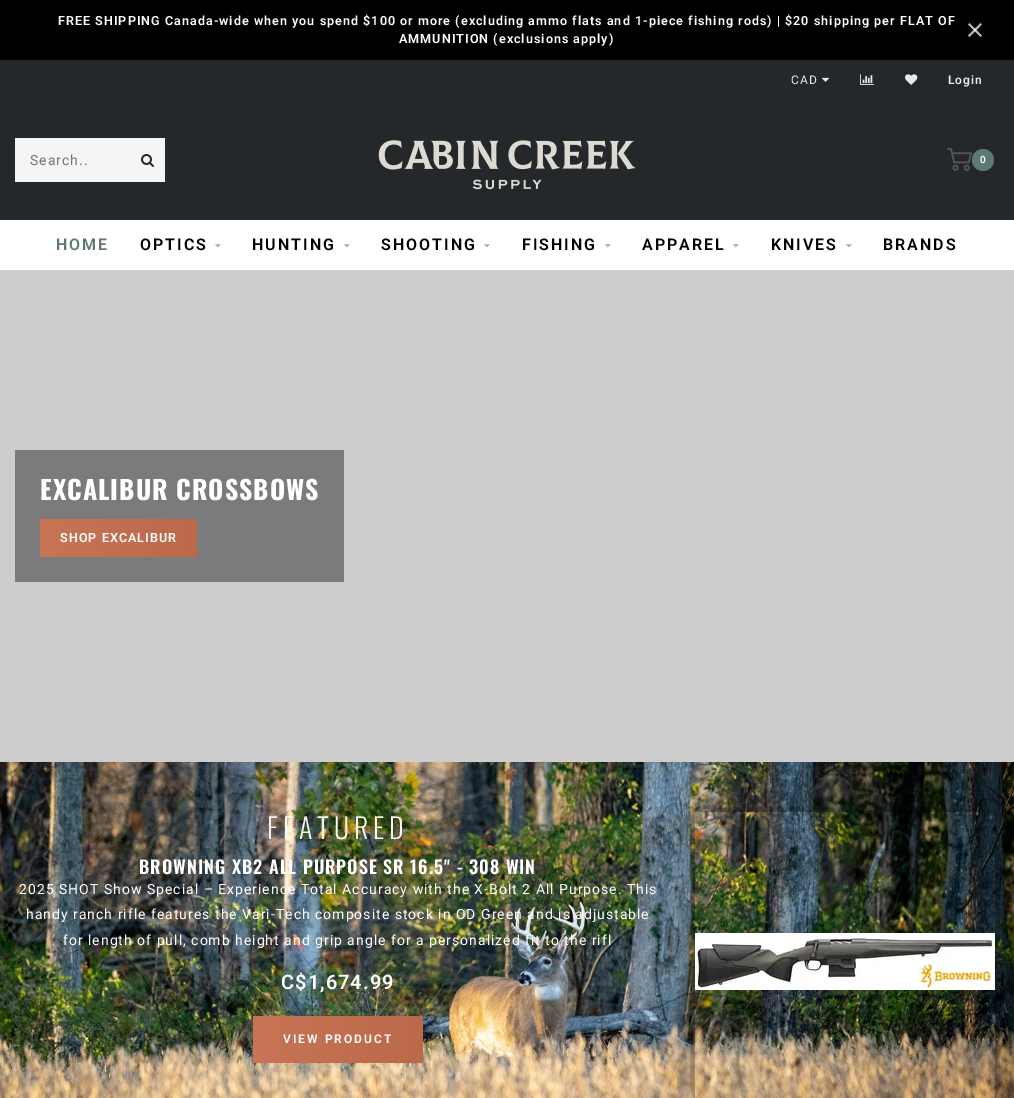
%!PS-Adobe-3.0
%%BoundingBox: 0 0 1014 1098
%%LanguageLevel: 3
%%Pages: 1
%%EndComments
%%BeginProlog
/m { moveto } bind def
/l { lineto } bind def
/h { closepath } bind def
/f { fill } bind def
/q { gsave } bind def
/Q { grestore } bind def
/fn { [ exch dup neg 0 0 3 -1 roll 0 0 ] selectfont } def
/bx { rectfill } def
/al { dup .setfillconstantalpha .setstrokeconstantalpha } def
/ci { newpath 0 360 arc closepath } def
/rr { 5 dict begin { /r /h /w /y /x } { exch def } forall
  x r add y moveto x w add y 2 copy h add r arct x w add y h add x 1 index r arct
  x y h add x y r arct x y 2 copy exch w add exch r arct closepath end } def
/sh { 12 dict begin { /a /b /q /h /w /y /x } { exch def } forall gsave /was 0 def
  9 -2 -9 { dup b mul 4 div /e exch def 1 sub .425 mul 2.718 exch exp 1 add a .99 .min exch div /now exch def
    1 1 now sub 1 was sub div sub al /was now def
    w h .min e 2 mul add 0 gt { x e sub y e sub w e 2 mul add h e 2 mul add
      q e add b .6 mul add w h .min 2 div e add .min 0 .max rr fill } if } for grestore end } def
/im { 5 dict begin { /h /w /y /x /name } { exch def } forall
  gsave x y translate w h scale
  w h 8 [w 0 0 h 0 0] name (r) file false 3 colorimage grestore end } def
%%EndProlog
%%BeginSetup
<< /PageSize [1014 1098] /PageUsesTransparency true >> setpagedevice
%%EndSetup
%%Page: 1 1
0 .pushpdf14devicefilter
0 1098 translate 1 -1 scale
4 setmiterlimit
1 setgray
0 0 1014 1098 bx
0 setgray
0 0 1014 60 bx
/Roboto-SemiBold 12.6 fn
1 setgray
58 25 m 1 0 (FREE SHIPPING Canada-wide when you spend $100 or more \(excluding ammo flats and 1-piece fishing rods\) | $20 shipping per FLAT OF) ashow
0.702 setgray
969.5 23 m 982 35.5 l 980.5 37 l 968 24.5 l h f
0.7 al
1 setgray
968 35.5 m 980.5 23 l 982 24.5 l 969.5 37 l h f
1 al
399 43 m 1 0 (AMMUNITION \(exclusions apply\)) ashow
0.145 0.157 0.165 setrgbcolor
0 60 1014 160 bx
/Roboto-Regular 12 fn
0.906 0.914 0.918 setrgbcolor
791 84 m 1 0 (CAD) ashow
(image0.raw) 822 77 7 5 im
(image1.raw) 860 74 15 11 im
(image2.raw) 905 74 13 11 im
/Roboto-SemiBold 12 fn
948 84 m 1 0 (Login) ashow
0.961 setgray
15 138 150 44 bx
/Roboto-Regular 14 fn
0.459 setgray
30 165 m 1 0 (Search..) ashow
(image3.raw) 141 154 13 13 im
(image4.raw) 378 140 258 50 im
(image5.raw) 947 148 25 23 im
0.369 0.475 0.459 setrgbcolor
983 160 11 ci f
/Roboto-SemiBold 10 fn
1 setgray
980 163 m 1 0 (0) ashow
/Roboto-SemiBold 16 fn
0.369 0.475 0.459 setrgbcolor
56 250 m 2 0 (HOME) ashow
0 setgray
140 250 m 2 0 (OPTICS) ashow
(image6.raw) 215 244 6 4 im
252 250 m 2 0 (HUNTING) ashow
(image6.raw) 344 244 6 4 im
381 250 m 2 0 (SHOOTING) ashow
(image6.raw) 484 244 6 4 im
522 250 m 2 0 (FISHING) ashow
(image6.raw) 605 244 6 4 im
642 250 m 2 0 (APPAREL) ashow
(image6.raw) 733 244 6 4 im
771 250 m 2 0 (KNIVES) ashow
(image6.raw) 846 244 6 4 im
883 250 m 2 0 (BRANDS) ashow
0.804 setgray
0 270 1014 492 bx
0.482 setgray
15 450 329 132 bx
/Oswald-Bold 26 fn
1 setgray
40 500 m 1 0 (EXCALIBUR CROSSBOWS) ashow
q 40 519 m 197 519 l 197 557 l 40 557 l h clip newpath
<< /ShadingType 2 /ColorSpace /DeviceRGB /Coords [40 538 197 538] /Extend [true true] /Function << /FunctionType 2 /Domain [0 1] /C0 [0.784 0.459 0.337] /C1 [0.737 0.408 0.29] /N 1 >> >> shfill Q
/Roboto-SemiBold 12.6 fn
60 542 m 1 0 (SHOP EXCALIBUR) ashow
(image7.raw) 0 762 1014 336 im
/Oswald-Light 28 fn
0.961 setgray
267 839 m 5 0 (FEATURED) ashow
/Oswald-SemiBold 18 fn
1 setgray
139 874 m 1 0 (BROWNING XB2 ALL PURPOSE SR 16.5" - 308 WIN) ashow
q
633 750 m 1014 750 l 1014 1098 l 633 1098 l h 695 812 m 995 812 l 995 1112 l 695 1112 l h eoclip newpath
0 setgray
709 826 272 272 0 25 1 sh
Q
/Roboto-Regular 14 fn
19 894 m 1 0 (2025 SHOT Show Special – Experience Total Accuracy with the X-Bolt 2 All Purpose. This) ashow
26 919 m 1 0 (handy ranch rifle features the Vari-Tech composite stock in OD Green and is adjustable) ashow
63 945 m 1 0 (for length of pull, comb height and grip angle for a personalized fit to the rifl) ashow
/Roboto-SemiBold 20 fn
281 989 m 1 0 (C$1,674.99) ashow
q 253 1016 170 47 1 rr clip newpath
<< /ShadingType 2 /ColorSpace /DeviceRGB /Coords [253 1040 423 1040] /Extend [true true] /Function << /FunctionType 2 /Domain [0 1] /C0 [0.784 0.459 0.337] /C1 [0.737 0.408 0.29] /N 1 >> >> shfill Q
/Roboto-SemiBold 12 fn
283 1043 m 2 0 (VIEW PRODUCT) ashow
(image8.raw) 695 933 300 57 im
.poppdf14devicefilter showpage
%%EOF
